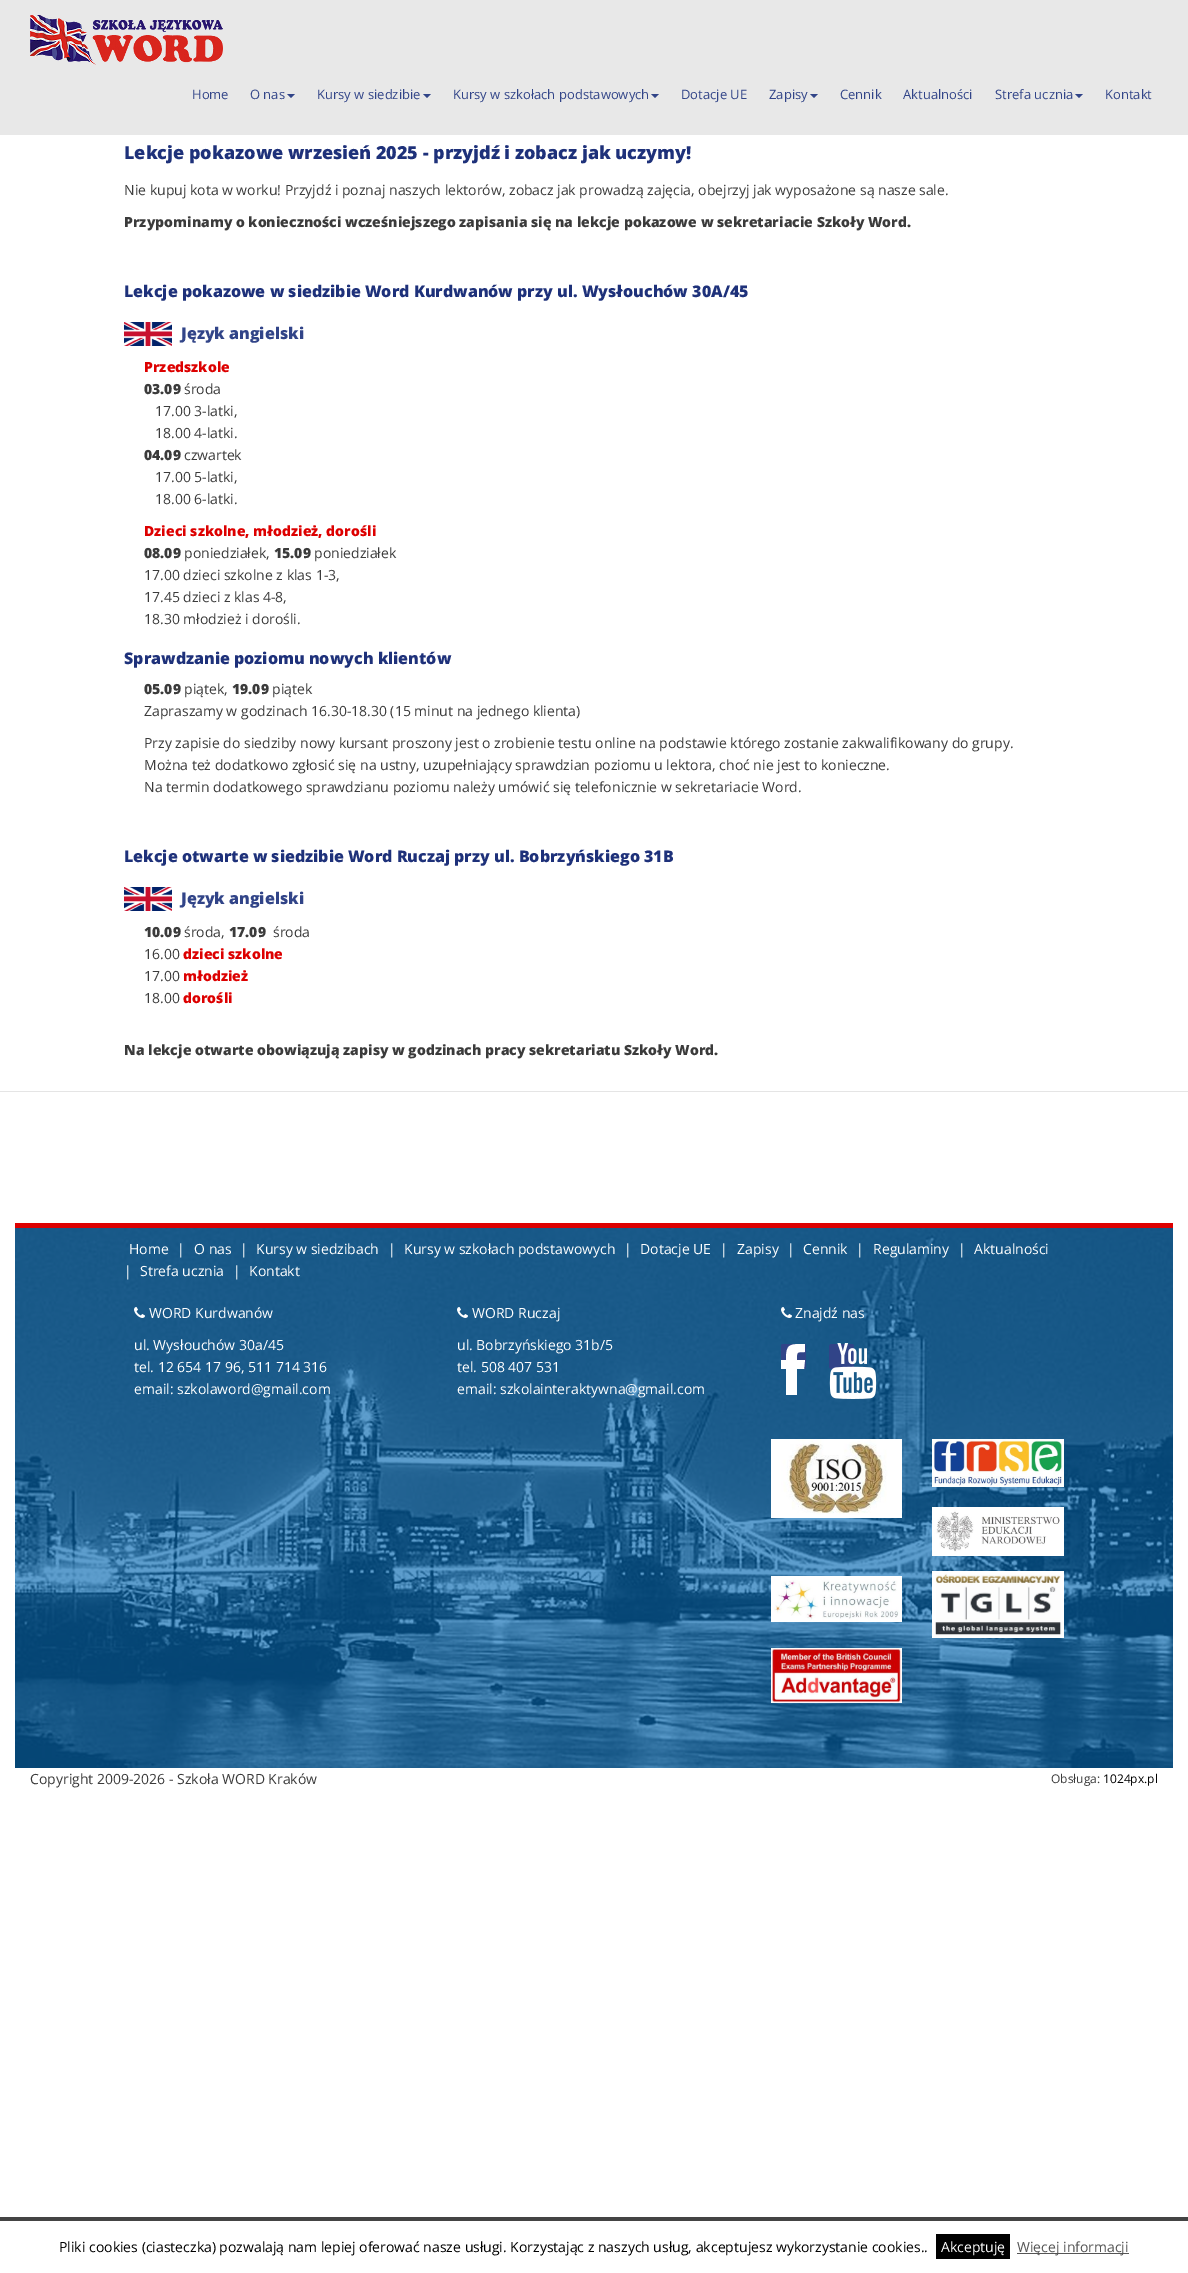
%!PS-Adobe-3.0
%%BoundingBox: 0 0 1188 2273
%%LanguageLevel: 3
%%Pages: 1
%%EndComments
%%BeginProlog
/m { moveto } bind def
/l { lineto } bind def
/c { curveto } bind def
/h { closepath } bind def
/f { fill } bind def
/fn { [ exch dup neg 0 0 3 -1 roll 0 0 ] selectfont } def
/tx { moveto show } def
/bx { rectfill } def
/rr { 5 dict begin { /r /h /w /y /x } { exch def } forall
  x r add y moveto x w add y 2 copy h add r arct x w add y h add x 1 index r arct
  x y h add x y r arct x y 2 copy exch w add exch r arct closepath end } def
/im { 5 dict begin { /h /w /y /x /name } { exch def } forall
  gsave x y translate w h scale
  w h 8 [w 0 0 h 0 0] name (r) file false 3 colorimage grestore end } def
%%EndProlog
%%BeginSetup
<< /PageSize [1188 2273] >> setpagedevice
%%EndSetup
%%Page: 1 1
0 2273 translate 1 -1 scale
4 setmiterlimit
1 setgray
0 0 1188 2273 bx
0.91 setgray
0 0 1188 135 bx
(image0.raw) 30 15 193 50 im
/OpenSans-Regular 13 fn
0.192 0.267 0.533 setrgbcolor
(Home) 192 99 tx
(O nas) 250 99 tx
287 94 m 295 94 l 291 98 l h f
(Kursy w siedzibie) 317 99 tx
423 94 m 431 94 l 427 98 l h f
(Kursy w szkołach podstawowych) 453 99 tx
651 94 m 659 94 l 655 98 l h f
(Dotacje UE) 681 99 tx
(Zapisy) 769 99 tx
810 94 m 818 94 l 814 98 l h f
(Cennik) 840 99 tx
(Aktualności) 903 99 tx
(Strefa ucznia) 995 99 tx
1075 94 m 1083 94 l 1079 98 l h f
(Kontakt) 1105 99 tx
/OpenSans-ExtraBold 18 fn
0.118 0.192 0.478 setrgbcolor
(Lekcje pokazowe wrzesień 2025 - przyjdź i zobacz jak uczymy!) 124 159 tx
/OpenSans-Regular 14 fn
0.231 setgray
(Nie kupuj kota w worku! Przyjdź i poznaj naszych lektorów, zobacz jak prowadzą zajęcia, obejrzyj jak wyposażone są nasze sale.) 124 195 tx
/OpenSans-ExtraBold 14 fn
(Przypominamy o konieczności wcześniejszego zapisania się na lekcje pokazowe w sekretariacie Szkoły Word.) 124 227 tx
/OpenSans-ExtraBold 16 fn
0.118 0.192 0.478 setrgbcolor
(Lekcje pokazowe w siedzibie Word Kurdwanów przy ul. Wysłouchów 30A/45) 124 297 tx
(image1.raw) 124 322 48 24 im
0.192 0.267 0.533 setrgbcolor
(Język angielski) 181 339 tx
/OpenSans-ExtraBold 14 fn
0.867 0 0 setrgbcolor
(Przedszkole) 144 372 tx
0.231 setgray
(03.09) 144 394 tx
/OpenSans-Regular 14 fn
(środa) 184 394 tx
(17.00 3-latki,) 155 416 tx
(18.00 4-latki.) 155 438 tx
/OpenSans-ExtraBold 14 fn
(04.09) 144 460 tx
/OpenSans-Regular 14 fn
(czwartek) 184 460 tx
(17.00 5-latki,) 155 482 tx
(18.00 6-latki.) 155 504 tx
/OpenSans-ExtraBold 14 fn
0.867 0 0 setrgbcolor
(Dzieci szkolne, młodzież, dorośli) 144 536 tx
0.231 setgray
(08.09) 144 558 tx
/OpenSans-Regular 14 fn
(poniedziałek,) 184 558 tx
/OpenSans-ExtraBold 14 fn
(15.09) 274 558 tx
/OpenSans-Regular 14 fn
(poniedziałek) 314 558 tx
(17.00 dzieci szkolne z klas 1-3,) 144 580 tx
(17.45 dzieci z klas 4-8,) 144 602 tx
(18.30 młodzież i dorośli.) 144 624 tx
/OpenSans-ExtraBold 16 fn
0.118 0.192 0.478 setrgbcolor
(Sprawdzanie poziomu nowych klientów) 124 664 tx
/OpenSans-ExtraBold 14 fn
0.231 setgray
(05.09) 144 694 tx
/OpenSans-Regular 14 fn
(piątek,) 184 694 tx
/OpenSans-ExtraBold 14 fn
(19.09) 232 694 tx
/OpenSans-Regular 14 fn
(piątek) 272 694 tx
(Zapraszamy w godzinach 16.30-18.30 \(15 minut na jednego klienta\)) 144 716 tx
(Przy zapisie do siedziby nowy kursant proszony jest o zrobienie testu online na podstawie którego zostanie zakwalifikowany do grupy.) 144 748 tx
(Można też dodatkowo zgłosić się na ustny, uzupełniający sprawdzian poziomu u lektora, choć nie jest to konieczne.) 144 770 tx
(Na termin dodatkowego sprawdzianu poziomu należy umówić się telefonicznie w sekretariacie Word.) 144 792 tx
/OpenSans-ExtraBold 16 fn
0.118 0.192 0.478 setrgbcolor
(Lekcje otwarte w siedzibie Word Ruczaj przy ul. Bobrzyńskiego 31B) 124 862 tx
(image1.raw) 124 887 48 24 im
0.192 0.267 0.533 setrgbcolor
(Język angielski) 181 904 tx
/OpenSans-ExtraBold 14 fn
0.231 setgray
(10.09) 144 937 tx
/OpenSans-Regular 14 fn
(środa,) 184 937 tx
/OpenSans-ExtraBold 14 fn
(17.09) 229 937 tx
/OpenSans-Regular 14 fn
(środa) 273 937 tx
(16.00) 144 959 tx
/OpenSans-ExtraBold 14 fn
0.867 0 0 setrgbcolor
(dzieci szkolne) 183 959 tx
/OpenSans-Regular 14 fn
0.231 setgray
(17.00) 144 981 tx
/OpenSans-ExtraBold 14 fn
0.867 0 0 setrgbcolor
(młodzież) 183 981 tx
/OpenSans-Regular 14 fn
0.231 setgray
(18.00) 144 1003 tx
/OpenSans-ExtraBold 14 fn
0.867 0 0 setrgbcolor
(dorośli) 183 1003 tx
0.231 setgray
(Na lekcje otwarte obowiązują zapisy w godzinach pracy sekretariatu Szkoły Word.) 124 1055 tx
0.898 setgray
0 1091 1188 1 bx
(image2.raw) 15 1228 1158 540 im
0.867 0 0 setrgbcolor
15 1223 1158 5 bx
/OpenSans-Regular 14 fn
1 setgray
(Home) 129 1254 tx
(|) 177 1254 tx
(O nas) 194 1254 tx
(|) 240 1254 tx
(Kursy w siedzibach) 256 1254 tx
(|) 388 1254 tx
(Kursy w szkołach podstawowych) 404 1254 tx
(|) 624 1254 tx
(Dotacje UE) 640 1254 tx
(|) 720 1254 tx
(Zapisy) 737 1254 tx
(|) 787 1254 tx
(Cennik) 803 1254 tx
(|) 856 1254 tx
(Regulaminy) 873 1254 tx
(|) 958 1254 tx
(Aktualności) 974 1254 tx
(|) 124 1276 tx
(Strefa ucznia) 140 1276 tx
(|) 233 1276 tx
(Kontakt) 249 1276 tx
(image3.raw) 134 1307 11 11 im
(WORD Kurdwanów) 149 1318 tx
(ul. Wysłouchów 30a/45) 134 1350 tx
(tel. 12 654 17 96, 511 714 316) 134 1372 tx
(email: szkolaword@gmail.com) 134 1394 tx
(image4.raw) 457 1307 11 11 im
(WORD Ruczaj) 472 1318 tx
(ul. Bobrzyńskiego 31b/5) 457 1350 tx
(tel. 508 407 531) 457 1372 tx
(email: szkolainteraktywna@gmail.com) 457 1394 tx
(image5.raw) 781 1307 11 11 im
(Znajdź nas) 795 1318 tx
0.192 0.267 0.533 setrgbcolor
781 1344 25 25 2 rr f
1 setgray
797 1360 m 805 1360 l 804 1369 l 797 1369 l 797 1395 l 786 1395 l 786 1369 l 781 1369 l 781 1360 l 786 1360 l 786 1344 789 1344 805 1344 c 805 1352 l 796 1352 797 1352 797 1360 c h f
0.192 0.267 0.533 setrgbcolor
829 1344 25 25 2 rr f
(image6.raw) 829 1343 48 56 im
(image7.raw) 771 1439 131 79 im
(image8.raw) 932 1439 132 48 im
(image9.raw) 932 1507 132 49 im
(image10.raw) 771 1576 131 46 im
(image11.raw) 932 1571 132 67 im
(image12.raw) 771 1648 131 55 im
0.231 setgray
(Copyright 2009-2026 - Szkoła WORD Kraków) 30 1784 tx
/OpenSans-Regular 12 fn
(Obsługa:) 1051 1783 tx
0 setgray
(1024px.pl) 1103 1783 tx
0.267 setgray
0 2217 1188 4 bx
/OpenSans-Regular 14 fn
0 setgray
(Pliki cookies \(ciasteczka\) pozwalają nam lepiej oferować nasze usługi. Korzystając z naszych usług, akceptujesz wykorzystanie cookies..) 59 2252 tx
936 2234 74 25 bx
1 setgray
(Akceptuję) 941 2252 tx
0.333 setgray
1017 2253 112 1 bx
(Więcej informacji) 1017 2252 tx
showpage
%%EOF
